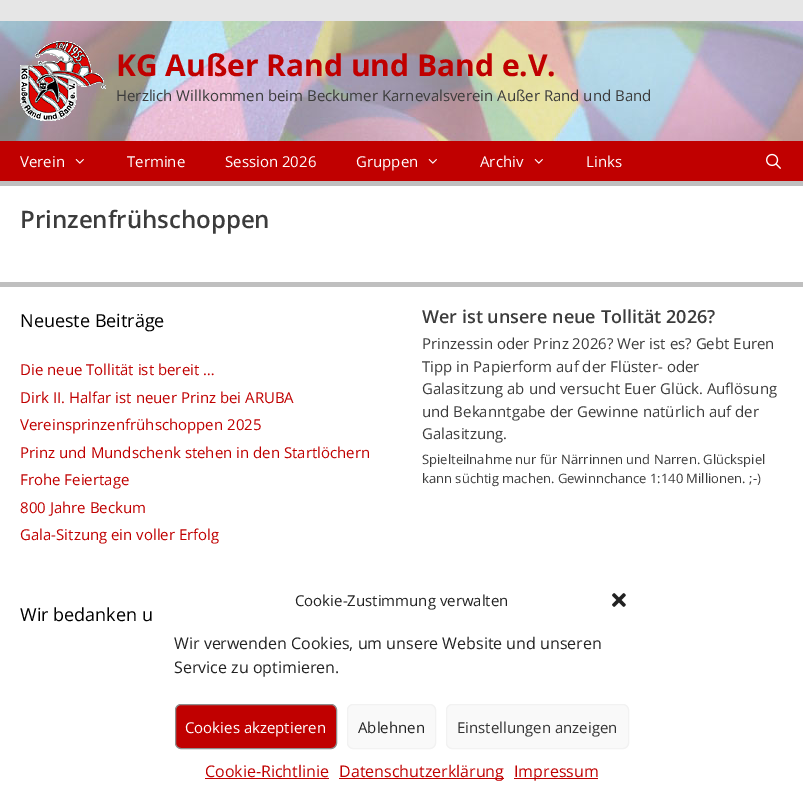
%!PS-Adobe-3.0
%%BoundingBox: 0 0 803 798
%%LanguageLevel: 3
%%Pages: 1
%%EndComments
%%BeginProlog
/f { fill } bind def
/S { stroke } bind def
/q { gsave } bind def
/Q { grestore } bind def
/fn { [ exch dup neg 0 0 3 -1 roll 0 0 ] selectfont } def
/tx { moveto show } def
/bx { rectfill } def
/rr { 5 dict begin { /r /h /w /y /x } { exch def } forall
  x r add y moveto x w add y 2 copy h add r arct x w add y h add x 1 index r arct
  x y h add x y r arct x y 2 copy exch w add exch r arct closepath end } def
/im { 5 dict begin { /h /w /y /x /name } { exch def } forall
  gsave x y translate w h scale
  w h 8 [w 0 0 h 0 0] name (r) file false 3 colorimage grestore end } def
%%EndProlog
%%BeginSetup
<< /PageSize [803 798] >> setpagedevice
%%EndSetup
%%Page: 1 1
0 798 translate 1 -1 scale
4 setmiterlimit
0.749 setgray
0 0 803 798 bx
0.902 setgray
0 0 803 21 bx
(image0.raw) 0 21 803 120 im
(image1.raw) 20 41 86 80 im
/OpenSans-Bold 30 fn
0.753 0 0 setrgbcolor
(KG Außer Rand und Band e.V.) 116 76 tx
/OpenSans-Regular 15 fn
0.235 setgray
(Herzlich Willkommen beim Beckumer Karnevalsverein Außer Rand und Band) 116 101 tx
0.753 0 0 setrgbcolor
0 141 803 40 bx
1 setgray
(Verein) 20 167 tx
(image2.raw) 75 159 9 5 im
(Termine) 127 167 tx
(Session 2026) 225 167 tx
(Gruppen) 356 167 tx
(image2.raw) 428 159 9 5 im
(Archiv) 480 167 tx
(image2.raw) 534 159 9 5 im
(Links) 586 167 tx
(image3.raw) 766 153 15 16 im
0 186 803 96 bx
/OpenSans-SemiBold 24 fn
0.235 setgray
(Prinzenfrühschoppen) 20 228 tx
1 setgray
0 287 803 511 bx
/OpenSans-Regular 18 fn
0 setgray
(Neueste Beiträge) 20 327 tx
/OpenSans-Regular 15 fn
0.753 0 0 setrgbcolor
(Die neue Tollität ist bereit …) 20 375 tx
(Dirk II. Halfar ist neuer Prinz bei ARUBA) 20 403 tx
(Vereinsprinzenfrühschoppen 2025) 20 430 tx
(Prinz und Mundschenk stehen in den Startlöchern) 20 458 tx
(Frohe Feiertage) 20 485 tx
(800 Jahre Beckum) 20 513 tx
(Gala-Sitzung ein voller Erfolg) 20 540 tx
/OpenSans-SemiBold 18 fn
0.235 setgray
(Wer ist unsere neue Tollität 2026?) 422 323 tx
/OpenSans-Regular 15 fn
(Prinzessin oder Prinz 2026? Wer ist es? Gebt Euren) 422 349 tx
(Tipp in Papierform auf der Flüster- oder) 422 372 tx
(Galasitzung ab und versucht Euer Glück. Auflösung) 422 394 tx
(und Bekanntgabe der Gewinne natürlich auf der) 422 417 tx
(Galasitzung.) 422 439 tx
/OpenSans-Regular 13 fn
(Spielteilnahme nur für Närrinnen und Narren. Glückspiel) 422 464 tx
(kann süchtig machen. Gewinnchance 1:140 Millionen. ;-\)) 422 483 tx
/OpenSans-Regular 18 fn
0 setgray
(Wir bedanken u) 20 621 tx
/OpenSans-Regular 15 fn
0.133 setgray
(Cookie-Zustimmung verwalten) 295 606 tx
(image4.raw) 612 593 14 14 im
/OpenSans-Regular 16 fn
(Wir verwenden Cookies, um unsere Website und unseren) 174 649 tx
(Service zu optimieren.) 174 673 tx
0.753 0 0 setrgbcolor
175.5 704.5 161 44 5.5 rr q f Q
0.557 setgray
S
/OpenSans-Regular 15 fn
1 setgray
(Cookies akzeptieren) 185 733 tx
0.976 setgray
347.5 704.5 88 44 5.5 rr q f Q
0.949 setgray
S
0.133 setgray
(Ablehnen) 358 733 tx
0.976 setgray
446.5 704.5 182 44 5.5 rr q f Q
0.949 setgray
S
0.2 setgray
(Einstellungen anzeigen) 457 733 tx
/OpenSans-Regular 16 fn
0.753 0 0 setrgbcolor
(Cookie-Richtlinie) 205 777 tx
205 778 124 1 bx
339 778 165 1 bx
(Datenschutzerklärung) 339 777 tx
514 778 84 1 bx
(Impressum) 514 777 tx
showpage
%%EOF
